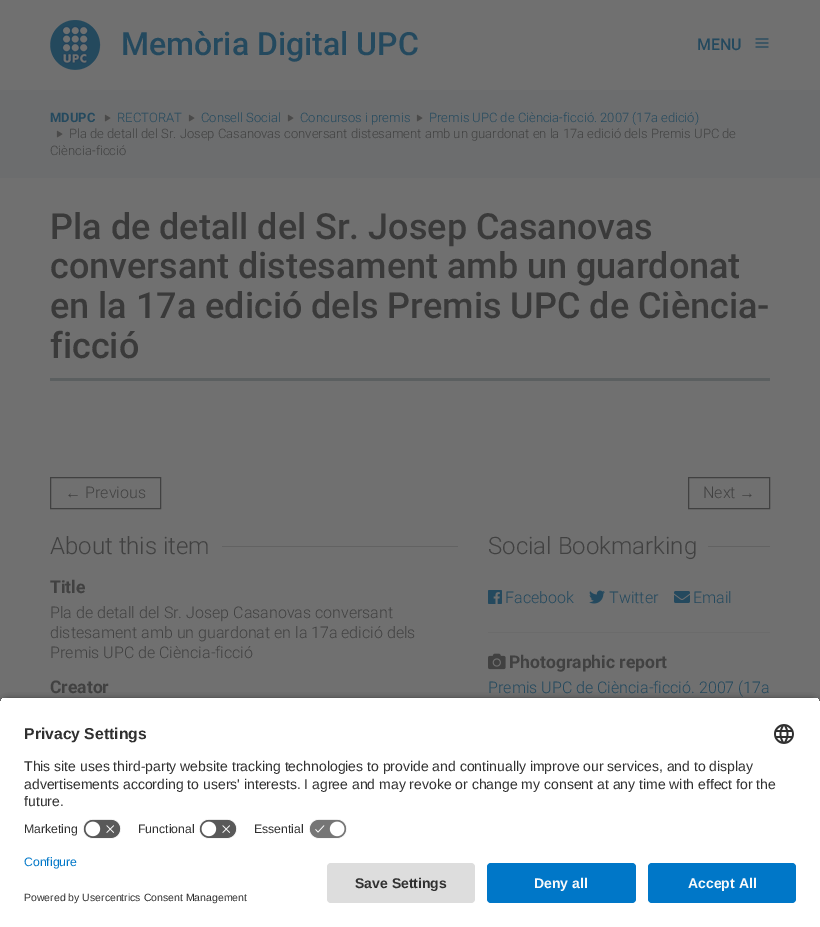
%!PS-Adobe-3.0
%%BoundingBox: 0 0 820 927
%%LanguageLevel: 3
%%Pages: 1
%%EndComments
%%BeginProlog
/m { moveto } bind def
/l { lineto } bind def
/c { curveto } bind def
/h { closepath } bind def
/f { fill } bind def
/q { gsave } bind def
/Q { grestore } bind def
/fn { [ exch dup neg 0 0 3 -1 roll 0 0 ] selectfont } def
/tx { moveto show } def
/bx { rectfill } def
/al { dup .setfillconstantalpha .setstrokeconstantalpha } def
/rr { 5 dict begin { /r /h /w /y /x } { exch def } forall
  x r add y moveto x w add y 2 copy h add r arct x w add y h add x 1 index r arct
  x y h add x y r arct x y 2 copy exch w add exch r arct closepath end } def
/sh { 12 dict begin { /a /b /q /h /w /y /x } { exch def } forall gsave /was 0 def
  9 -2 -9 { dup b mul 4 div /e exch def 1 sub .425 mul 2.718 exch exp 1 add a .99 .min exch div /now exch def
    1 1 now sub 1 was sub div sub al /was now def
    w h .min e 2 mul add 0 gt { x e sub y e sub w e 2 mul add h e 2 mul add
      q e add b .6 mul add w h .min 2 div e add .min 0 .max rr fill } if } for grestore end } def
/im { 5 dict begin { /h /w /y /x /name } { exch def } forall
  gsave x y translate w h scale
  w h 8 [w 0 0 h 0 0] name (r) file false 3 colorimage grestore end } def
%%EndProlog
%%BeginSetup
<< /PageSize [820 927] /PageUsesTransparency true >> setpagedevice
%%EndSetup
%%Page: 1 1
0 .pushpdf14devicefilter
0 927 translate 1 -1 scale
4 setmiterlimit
0.439 setgray
0 0 820 927 bx
(image0.raw) 50 20 51 50 im
/Roboto-Medium 32 fn
0.141 0.286 0.369 setrgbcolor
(Memòria Digital UPC) 121 55 tx
/Roboto-Medium 16 fn
(MENU) 697 50 tx
(image1.raw) 755 38 14 10 im
0.424 0.427 0.431 setrgbcolor
0 90 820 88 bx
/Roboto-Bold 13 fn
0.141 0.286 0.369 setrgbcolor
(MDUPC) 50 122 tx
(image2.raw) 104 114 7 8 im
/Roboto-Light 13 fn
(RECTORAT) 117 122 tx
(image2.raw) 188 114 7 8 im
(Consell Social) 201 122 tx
(image2.raw) 287 114 7 8 im
(Concursos i premis) 300 122 tx
(image2.raw) 416 114 7 8 im
(Premis UPC de Ciència-ficció. 2007 \(17a edició\)) 429 122 tx
(image2.raw) 56 130 7 8 im
0.255 setgray
(Pla de detall del Sr. Josep Casanovas conversant distesament amb un guardonat en la 17a edició dels Premis UPC de) 69 138 tx
(Ciència-ficció) 50 155 tx
0.357 0.373 0.376 setrgbcolor
50 378 720 3 bx
/Roboto-Medium 36 fn
0.227 setgray
(Pla de detall del Sr. Josep Casanovas) 50 239 tx
(conversant distesament amb un guardonat) 50 278 tx
(en la 17a edició dels Premis UPC de Ciència-) 50 318 tx
(ficció) 50 358 tx
0.255 setgray
50.5 477.5 110 31 rectstroke
/LiberationSans-Regular 16 fn
(←) 65 498 tx
/Roboto-Light 16 fn
(Previous) 85 498 tx
688.5 477.5 81 31 rectstroke
(Next) 703 498 tx
/LiberationSans-Regular 16 fn
(→) 739 498 tx
/Roboto-Light 24 fn
(About this item) 50 554 tx
0.384 setgray
222 546 236 1 bx
/Roboto-Bold 17.5 fn
0.255 setgray
(Title) 50 593 tx
/Roboto-Light 16 fn
(Pla de detall del Sr. Josep Casanovas conversant) 50 618 tx
(distesament amb un guardonat en la 17a edició dels) 50 638 tx
(Premis UPC de Ciència-ficció) 50 658 tx
/Roboto-Bold 17.5 fn
(Creator) 50 693 tx
/Roboto-Light 24 fn
(Social Bookmarking) 488 554 tx
0.384 setgray
708 546 62 1 bx
(image3.raw) 488 590 14 14 im
/Roboto-Light 16 fn
0.141 0.286 0.369 setrgbcolor
(Facebook) 505 603 tx
(image4.raw) 589 590 16 14 im
(Twitter) 609 603 tx
(image5.raw) 674 591 16 12 im
(Email) 693 603 tx
0.42 setgray
488 632 282 1 bx
(image6.raw) 488 653 18 17 im
/Roboto-Bold 17.5 fn
0.255 setgray
(Photographic report) 509 668 tx
/Roboto-Light 16 fn
0.141 0.286 0.369 setrgbcolor
(Premis UPC de Ciència-ficció. 2007 \(17a) 488 693 tx
0 setgray
0 700 820 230 8 3.5 0.8 sh
q
8 697 m 812 697 l 816.5 697 820 700.5 820 705 c 820 855 l 0 855 l 0 705 l 0 700.5 3.5 697 8 697 c h clip newpath
1 setgray
0 698 820 157 bx
0 698 820 117 bx
Q
/LiberationSans-Bold 15.75 fn
0.188 setgray
(Privacy Settings) 24 739 tx
(image7.raw) 774 724 20 20 im
/LiberationSans-Regular 14 fn
(This site uses third-party website tracking technologies to provide and continually improve our services, and to display) 24 771 tx
(advertisements according to users' interests. I agree and may revoke or change my consent at any time with effect for the) 24 789 tx
(future.) 24 806 tx
/LiberationSans-Regular 12.25 fn
(Marketing) 24 833 tx
(image8.raw) 83 819 38 20 im
(Functional) 138 833 tx
(image8.raw) 199 819 38 20 im
(Essential) 254 833 tx
(image9.raw) 309 819 38 20 im
1 setgray
0 855 820 72 bx
0 0.467 0.784 setrgbcolor
(Configure) 24 866 tx
/LiberationSans-Regular 10.5 fn
0.188 setgray
(Powered by Usercentrics Consent Management) 24 901 tx
0.867 setgray
327 863 148 40 4 rr f
/LiberationSans-Bold 14 fn
0.188 setgray
(Save Settings) 355 888 tx
0 0.467 0.784 setrgbcolor
487 863 149 40 4 rr f
0.98 setgray
(Deny all) 534 888 tx
0 0.467 0.784 setrgbcolor
648 863 148 40 4 rr f
0.98 setgray
(Accept All) 688 888 tx
.poppdf14devicefilter showpage
%%EOF
